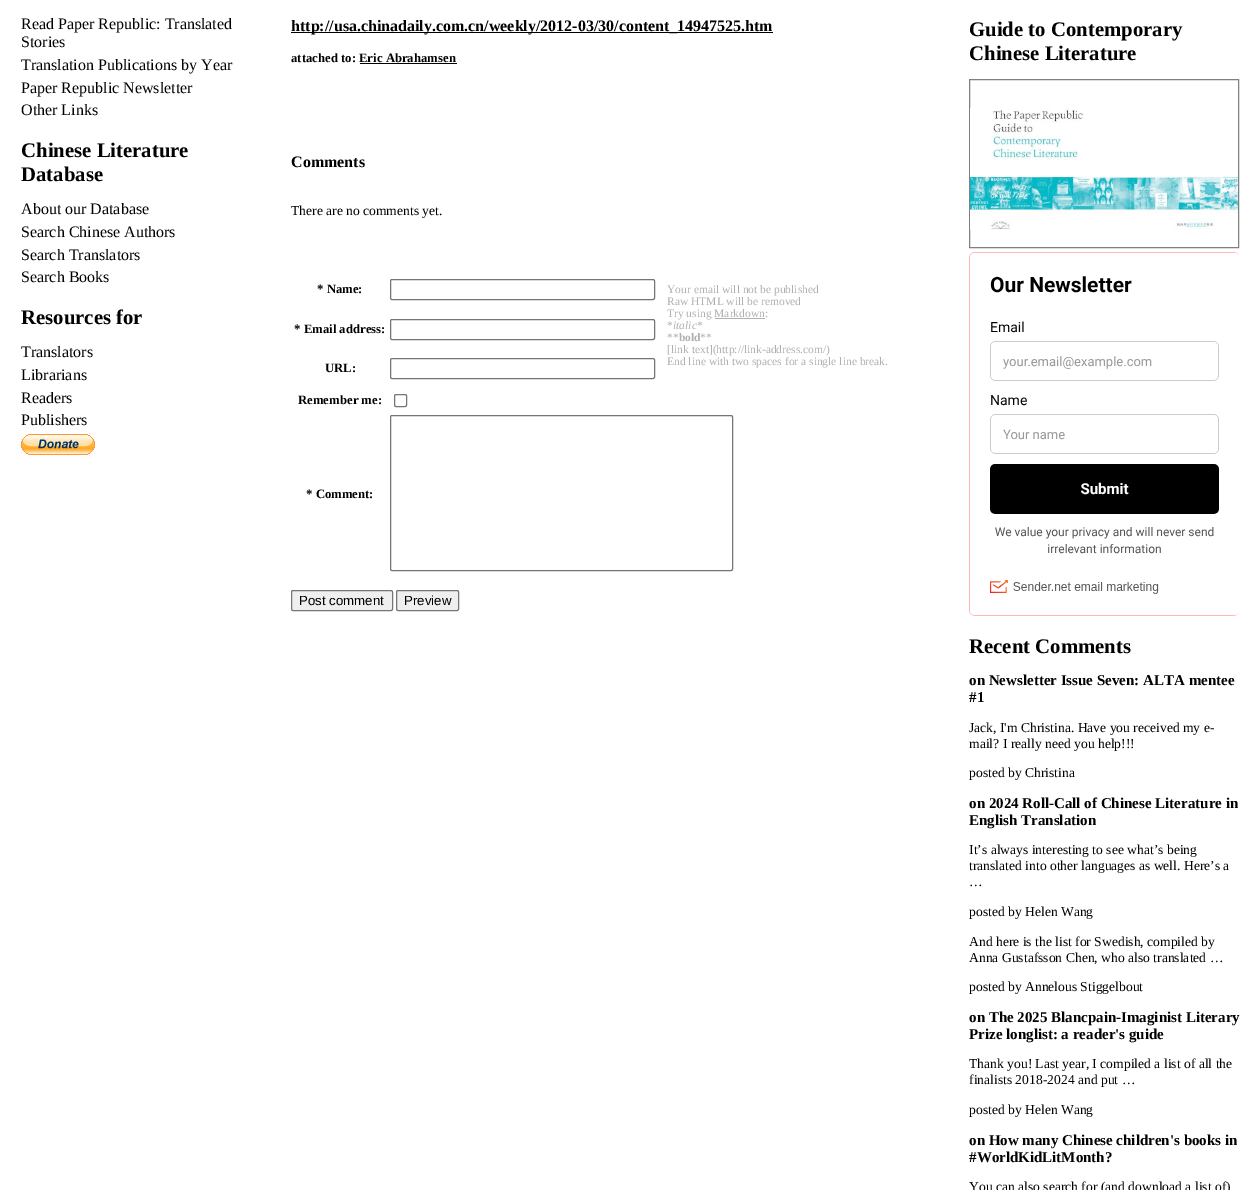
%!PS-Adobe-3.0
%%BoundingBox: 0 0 1260 1190
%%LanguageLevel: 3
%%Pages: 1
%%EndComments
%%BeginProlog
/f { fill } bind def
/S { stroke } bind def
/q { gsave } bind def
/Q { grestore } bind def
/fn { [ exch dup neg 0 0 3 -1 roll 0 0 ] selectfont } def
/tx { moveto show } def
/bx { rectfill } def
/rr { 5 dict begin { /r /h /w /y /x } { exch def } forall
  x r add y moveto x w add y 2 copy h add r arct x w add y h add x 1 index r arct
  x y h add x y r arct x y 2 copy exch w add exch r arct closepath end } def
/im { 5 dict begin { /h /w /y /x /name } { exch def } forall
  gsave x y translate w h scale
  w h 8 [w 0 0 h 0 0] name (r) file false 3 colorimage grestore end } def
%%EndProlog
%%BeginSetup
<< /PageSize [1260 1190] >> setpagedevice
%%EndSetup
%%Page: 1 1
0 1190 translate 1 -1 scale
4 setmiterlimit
1 setgray
0 0 1260 1190 bx
/LiberationSerif-Regular 16 fn
0 setgray
(Read Paper Republic: Translated) 21 29 tx
(Stories) 21 47 tx
(Translation Publications by Year) 21 70 tx
(Paper Republic Newsletter) 21 93 tx
(Other Links) 21 115 tx
/LiberationSerif-Bold 20.75 fn
(Chinese Literature) 21 157 tx
(Database) 21 181 tx
/LiberationSerif-Regular 16 fn
(About our Database) 21 214 tx
(Search Chinese Authors) 21 237 tx
(Search Translators) 21 260 tx
(Search Books) 21 282 tx
/LiberationSerif-Bold 20.75 fn
(Resources for) 21 324 tx
/LiberationSerif-Regular 16 fn
(Translators) 21 357 tx
(Librarians) 21 380 tx
(Readers) 21 403 tx
(Publishers) 21 425 tx
(image0.raw) 21 434 74 21 im
291 32 482 1 bx
/LiberationSerif-Bold 16 fn
(http://usa.chinadaily.com.cn/weekly/2012-03/30/content_14947525.htm) 291 31 tx
/LiberationSerif-Bold 12.75 fn
(attached to: Eric Abrahamsen) 291 62 tx
360 63 97 1 bx
/LiberationSerif-Bold 16 fn
(Comments) 291 167 tx
/LiberationSerif-Regular 13.6 fn
(There are no comments yet.) 291 215 tx
/LiberationSerif-Bold 12.75 fn
(* Name:) 317 293 tx
0.463 setgray
390.5 279.5 264 20 1.5 rr S
/LiberationSerif-Regular 11.5 fn
0.69 setgray
(Your email will not be published) 667 293 tx
(Raw HTML will be removed) 667 305 tx
(Try using Markdown:) 667 317 tx
715 318 50 1 bx
(*) 667 329 tx
/LiberationSerif-Italic 11.5 fn
(italic) 673 329 tx
/LiberationSerif-Regular 11.5 fn
(*) 697 329 tx
(**) 667 341 tx
/LiberationSerif-Bold 11.5 fn
(bold) 679 341 tx
/LiberationSerif-Regular 11.5 fn
(**) 700 341 tx
([link text]\(http://link-address.com/\)) 667 353 tx
(End line with two spaces for a single line break.) 667 365 tx
/LiberationSerif-Bold 12.75 fn
0 setgray
(* Email address:) 294 333 tx
0.463 setgray
390.5 319.5 264 20 1.5 rr S
0 setgray
(URL:) 325 372 tx
0.463 setgray
390.5 358.5 264 20 1.5 rr S
0 setgray
(Remember me:) 298 404 tx
0.463 setgray
394.5 394.5 12 12 1.5 rr S
0 setgray
(* Comment:) 306 498 tx
0.463 setgray
390.5 415.5 342 155 1.5 rr S
0.937 setgray
291.5 590.5 101 20 1.5 rr q f Q
0.463 setgray
S
/LiberationSans-Regular 13.25 fn
0 setgray
(Post comment) 299 605 tx
0.937 setgray
396.5 590.5 62 20 1.5 rr q f Q
0.463 setgray
S
0 setgray
(Preview) 404 605 tx
/LiberationSerif-Bold 20.75 fn
(Guide to Contemporary) 969 36 tx
(Chinese Literature) 969 60 tx
0.502 setgray
969.5 79.5 269 168 rectstroke
(image1.raw) 970 108 268 122 im
(image2.raw) 969 252 270 364 im
0 setgray
(Recent Comments) 969 653 tx
/LiberationSerif-Bold 15 fn
(on Newsletter Issue Seven: ALTA mentee) 969 685 tx
(#1) 969 702 tx
/LiberationSerif-Regular 13.6 fn
(Jack, I'm Christina. Have you received my e-) 969 732 tx
(mail? I really need you help!!!) 969 748 tx
(posted by Christina) 969 777 tx
/LiberationSerif-Bold 15 fn
(on 2024 Roll-Call of Chinese Literature in) 969 808 tx
(English Translation) 969 825 tx
/LiberationSerif-Regular 13.6 fn
(It’s always interesting to see what’s being) 969 854 tx
(translated into other languages as well. Here’s a) 969 870 tx
(…) 969 886 tx
(posted by Helen Wang) 969 916 tx
(And here is the list for Swedish, compiled by) 969 946 tx
(Anna Gustafsson Chen, who also translated …) 969 962 tx
(posted by Annelous Stiggelbout) 969 991 tx
/LiberationSerif-Bold 15 fn
(on The 2025 Blancpain-Imaginist Literary) 969 1022 tx
(Prize longlist: a reader's guide) 969 1039 tx
/LiberationSerif-Regular 13.6 fn
(Thank you! Last year, I compiled a list of all the) 969 1068 tx
(finalists 2018-2024 and put …) 969 1084 tx
(posted by Helen Wang) 969 1114 tx
/LiberationSerif-Bold 15 fn
(on How many Chinese children's books in) 969 1145 tx
(#WorldKidLitMonth?) 969 1162 tx
/LiberationSerif-Regular 13.6 fn
(You can also search for \(and download a list of\)) 969 1191 tx
showpage
%%EOF
